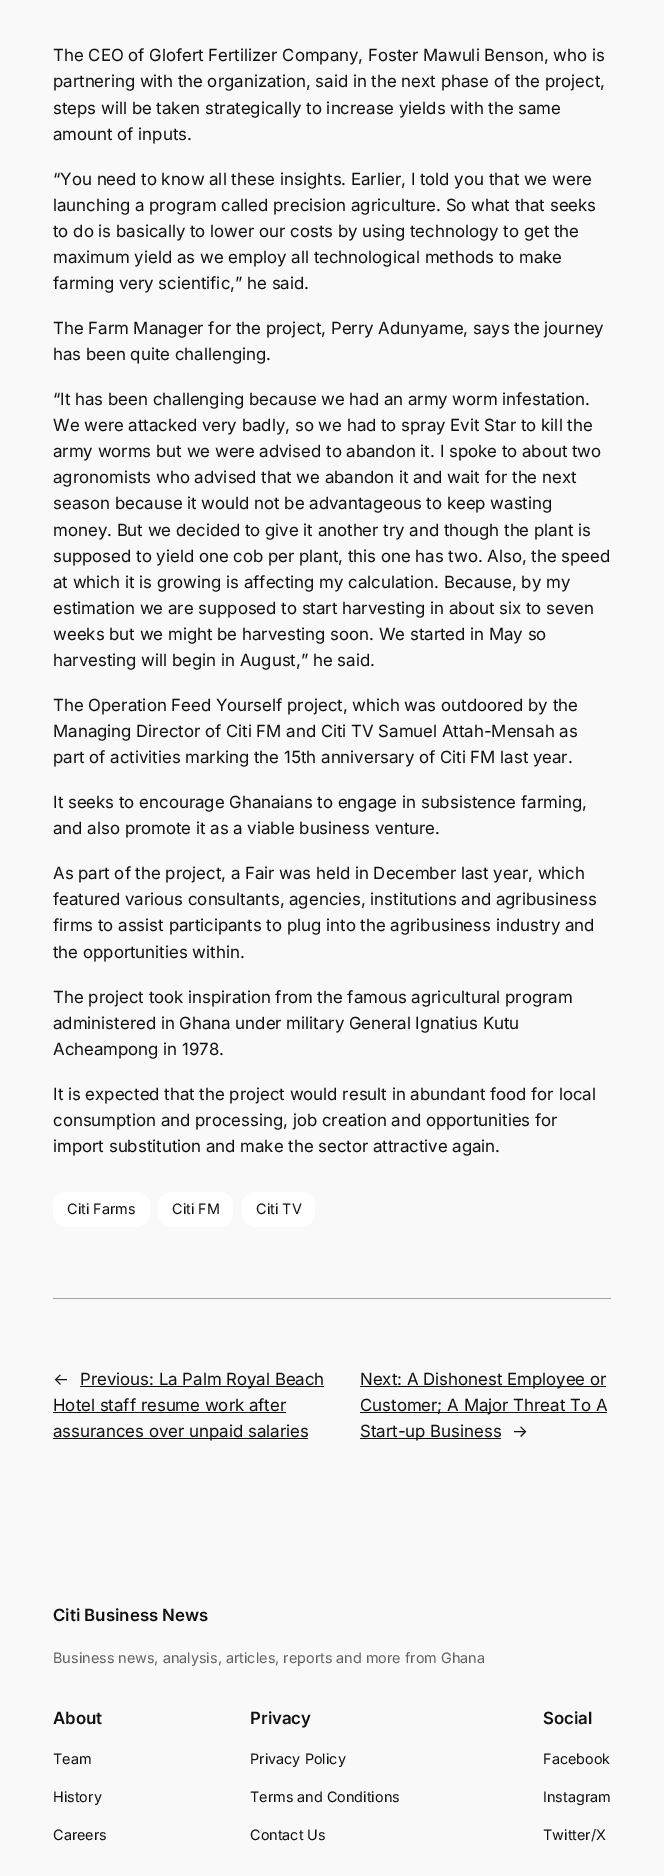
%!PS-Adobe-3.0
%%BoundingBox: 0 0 664 1876
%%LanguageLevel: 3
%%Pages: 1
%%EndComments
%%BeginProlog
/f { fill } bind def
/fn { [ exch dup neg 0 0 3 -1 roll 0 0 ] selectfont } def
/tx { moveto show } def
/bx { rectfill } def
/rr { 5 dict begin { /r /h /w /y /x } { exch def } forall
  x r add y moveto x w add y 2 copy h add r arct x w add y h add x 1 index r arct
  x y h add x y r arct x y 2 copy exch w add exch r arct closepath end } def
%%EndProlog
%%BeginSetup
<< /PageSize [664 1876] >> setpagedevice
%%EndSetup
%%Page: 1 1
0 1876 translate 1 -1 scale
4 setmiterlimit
0.976 setgray
0 0 664 1876 bx
/Inter-Regular 16.8 fn
0.067 setgray
(The CEO of Glofert Fertilizer Company, Foster Mawuli Benson, who is) 53 61 tx
(partnering with the organization, said in the next phase of the project,) 53 87 tx
(steps will be taken strategically to increase yields with the same) 53 114 tx
(amount of inputs.) 53 140 tx
(“You need to know all these insights. Earlier, I told you that we were) 53 185 tx
(launching a program called precision agriculture. So what that seeks) 53 211 tx
(to do is basically to lower our costs by using technology to get the) 53 237 tx
(maximum yield as we employ all technological methods to make) 53 263 tx
(farming very scientific,” he said.) 53 289 tx
(The Farm Manager for the project, Perry Adunyame, says the journey) 53 334 tx
(has been quite challenging.) 53 360 tx
(“It has been challenging because we had an army worm infestation.) 53 405 tx
(We were attacked very badly, so we had to spray Evit Star to kill the) 53 431 tx
(army worms but we were advised to abandon it. I spoke to about two) 53 457 tx
(agronomists who advised that we abandon it and wait for the next) 53 483 tx
(season because it would not be advantageous to keep wasting) 53 509 tx
(money. But we decided to give it another try and though the plant is) 53 536 tx
(supposed to yield one cob per plant, this one has two. Also, the speed) 53 562 tx
(at which it is growing is affecting my calculation. Because, by my) 53 588 tx
(estimation we are supposed to start harvesting in about six to seven) 53 614 tx
(weeks but we might be harvesting soon. We started in May so) 53 640 tx
(harvesting will begin in August,” he said.) 53 666 tx
(The Operation Feed Yourself project, which was outdoored by the) 53 711 tx
(Managing Director of Citi FM and Citi TV Samuel Attah-Mensah as) 53 737 tx
(part of activities marking the 15th anniversary of Citi FM last year.) 53 763 tx
(It seeks to encourage Ghanaians to engage in subsistence farming,) 53 808 tx
(and also promote it as a viable business venture.) 53 834 tx
(As part of the project, a Fair was held in December last year, which) 53 879 tx
(featured various consultants, agencies, institutions and agribusiness) 53 905 tx
(firms to assist participants to plug into the agribusiness industry and) 53 931 tx
(the opportunities within.) 53 958 tx
(The project took inspiration from the famous agricultural program) 53 1003 tx
(administered in Ghana under military General Ignatius Kutu) 53 1029 tx
(Acheampong in 1978.) 53 1055 tx
(It is expected that the project would result in abundant food for local) 53 1100 tx
(consumption and processing, job creation and opportunities for) 53 1126 tx
(import substitution and make the sector attractive again.) 53 1152 tx
1 setgray
53 1192 97 35 13 rr f
/Inter-Regular 14.4 fn
0.067 setgray
(Citi Farms) 67 1214 tx
1 setgray
158 1192 75 35 13 rr f
0.067 setgray
(Citi FM) 172 1214 tx
1 setgray
242 1192 73 35 13 rr f
0.067 setgray
(Citi TV) 256 1214 tx
0.643 setgray
53 1298 558 1 bx
/Inter-Regular 16.8 fn
0.067 setgray
(←) 53 1385 tx
80 1386 244 1 bx
(Previous: La Palm Royal Beach) 80 1385 tx
(Hotel staff resume work after) 53 1411 tx
53 1412 233 1 bx
53 1438 255 1 bx
(assurances over unpaid salaries) 53 1437 tx
360 1386 246 1 bx
(Next: A Dishonest Employee or) 360 1385 tx
360 1412 247 1 bx
(Customer; A Major Threat To A) 360 1411 tx
360 1438 141 1 bx
(Start-up Business) 360 1437 tx
(→) 512 1437 tx
/Inter-SemiBold 16.8 fn
(Citi Business News) 53 1621 tx
/Inter-Regular 14.4 fn
0.388 setgray
(Business news, analysis, articles, reports and more from Ghana) 53 1663 tx
/Inter-SemiBold 16.8 fn
0.067 setgray
(About) 53 1724 tx
/Inter-Regular 14.4 fn
(Team) 53 1764 tx
(History) 53 1802 tx
(Careers) 53 1840 tx
/Inter-SemiBold 16.8 fn
(Privacy) 250 1724 tx
/Inter-Regular 14.4 fn
(Privacy Policy) 250 1764 tx
(Terms and Conditions) 250 1802 tx
(Contact Us) 250 1840 tx
/Inter-SemiBold 16.8 fn
(Social) 543 1724 tx
/Inter-Regular 14.4 fn
(Facebook) 543 1764 tx
(Instagram) 543 1802 tx
(Twitter/X) 543 1840 tx
showpage
%%EOF
